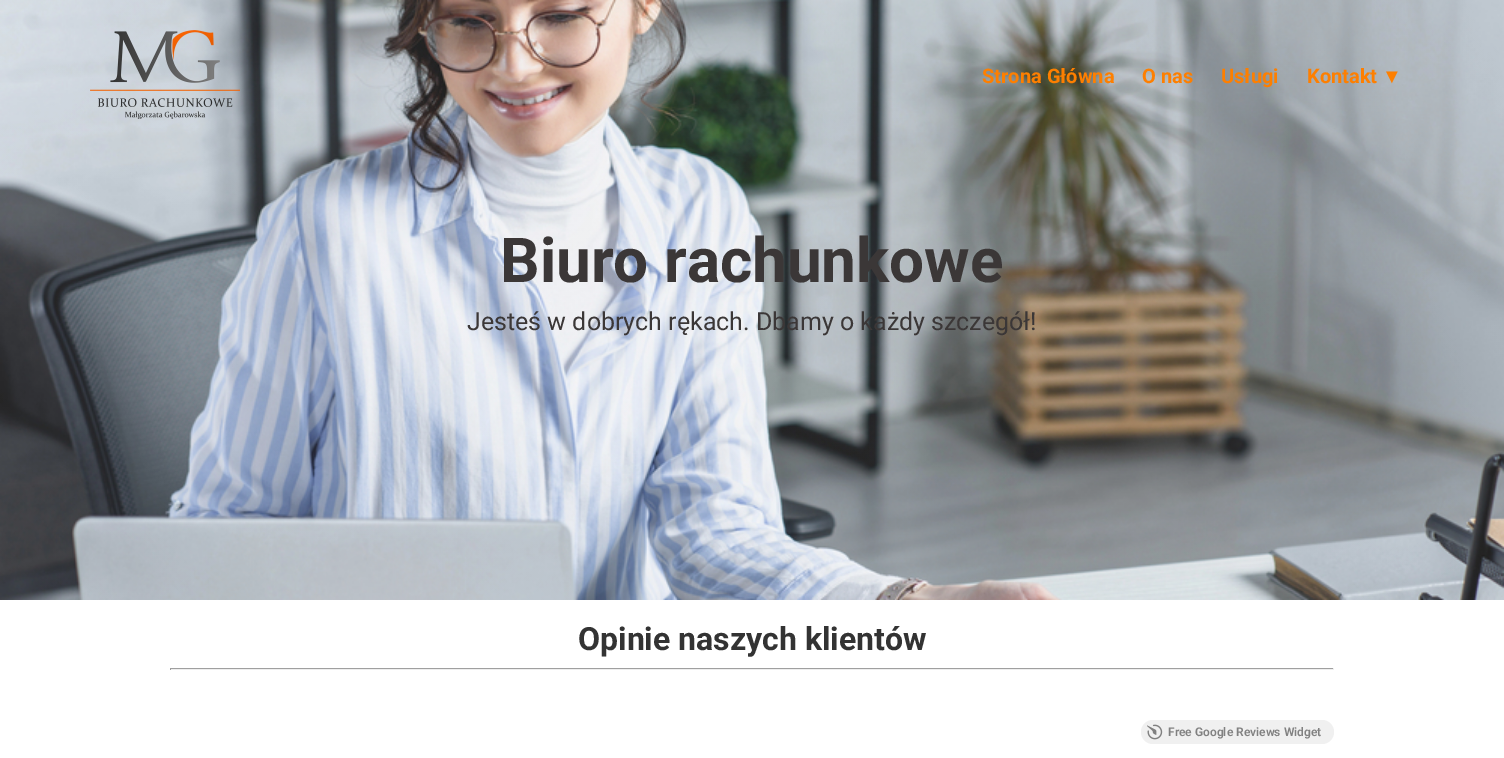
%!PS-Adobe-3.0
%%BoundingBox: 0 0 1504 758
%%LanguageLevel: 3
%%Pages: 1
%%EndComments
%%BeginProlog
/f { fill } bind def
/fn { [ exch dup neg 0 0 3 -1 roll 0 0 ] selectfont } def
/tx { moveto show } def
/bx { rectfill } def
/rr { 5 dict begin { /r /h /w /y /x } { exch def } forall
  x r add y moveto x w add y 2 copy h add r arct x w add y h add x 1 index r arct
  x y h add x y r arct x y 2 copy exch w add exch r arct closepath end } def
/im { 5 dict begin { /h /w /y /x /name } { exch def } forall
  gsave x y translate w h scale
  w h 8 [w 0 0 h 0 0] name (r) file false 3 colorimage grestore end } def
%%EndProlog
%%BeginSetup
<< /PageSize [1504 758] >> setpagedevice
%%EndSetup
%%Page: 1 1
0 758 translate 1 -1 scale
4 setmiterlimit
1 setgray
0 0 1504 758 bx
(image0.raw) 0 0 1504 600 im
(image1.raw) 90 30 150 89 im
/Roboto-Bold 20 fn
0.996 0.498 0 setrgbcolor
(Strona Główna) 982 83 tx
(O nas) 1142 83 tx
(Usługi) 1221 83 tx
(Kontakt) 1307 83 tx
/LiberationSans-Bold 20 fn
(▼) 1382 83 tx
/Roboto-Bold 62 fn
0.231 0.216 0.216 setrgbcolor
(Biuro rachunkowe) 500 282 tx
/Roboto-Regular 25 fn
(Jesteś w dobrych rękach. Dbamy o każdy szczegół!) 467 330 tx
/Roboto-Bold 32 fn
0.2 setgray
(Opinie naszych klientów) 578 650 tx
0.624 setgray
170 668 1164 1 bx
0.933 setgray
1333 668 1 2 bx
170 669 1164 1 bx
0.624 setgray
170 668 1 2 bx
0.941 setgray
1141 720 193 24 12 rr f
(image2.raw) 1147 724 16 16 im
/Roboto-SemiBold 12 fn
0.506 setgray
(Free Google Reviews Widget) 1168 736 tx
showpage
%%EOF
